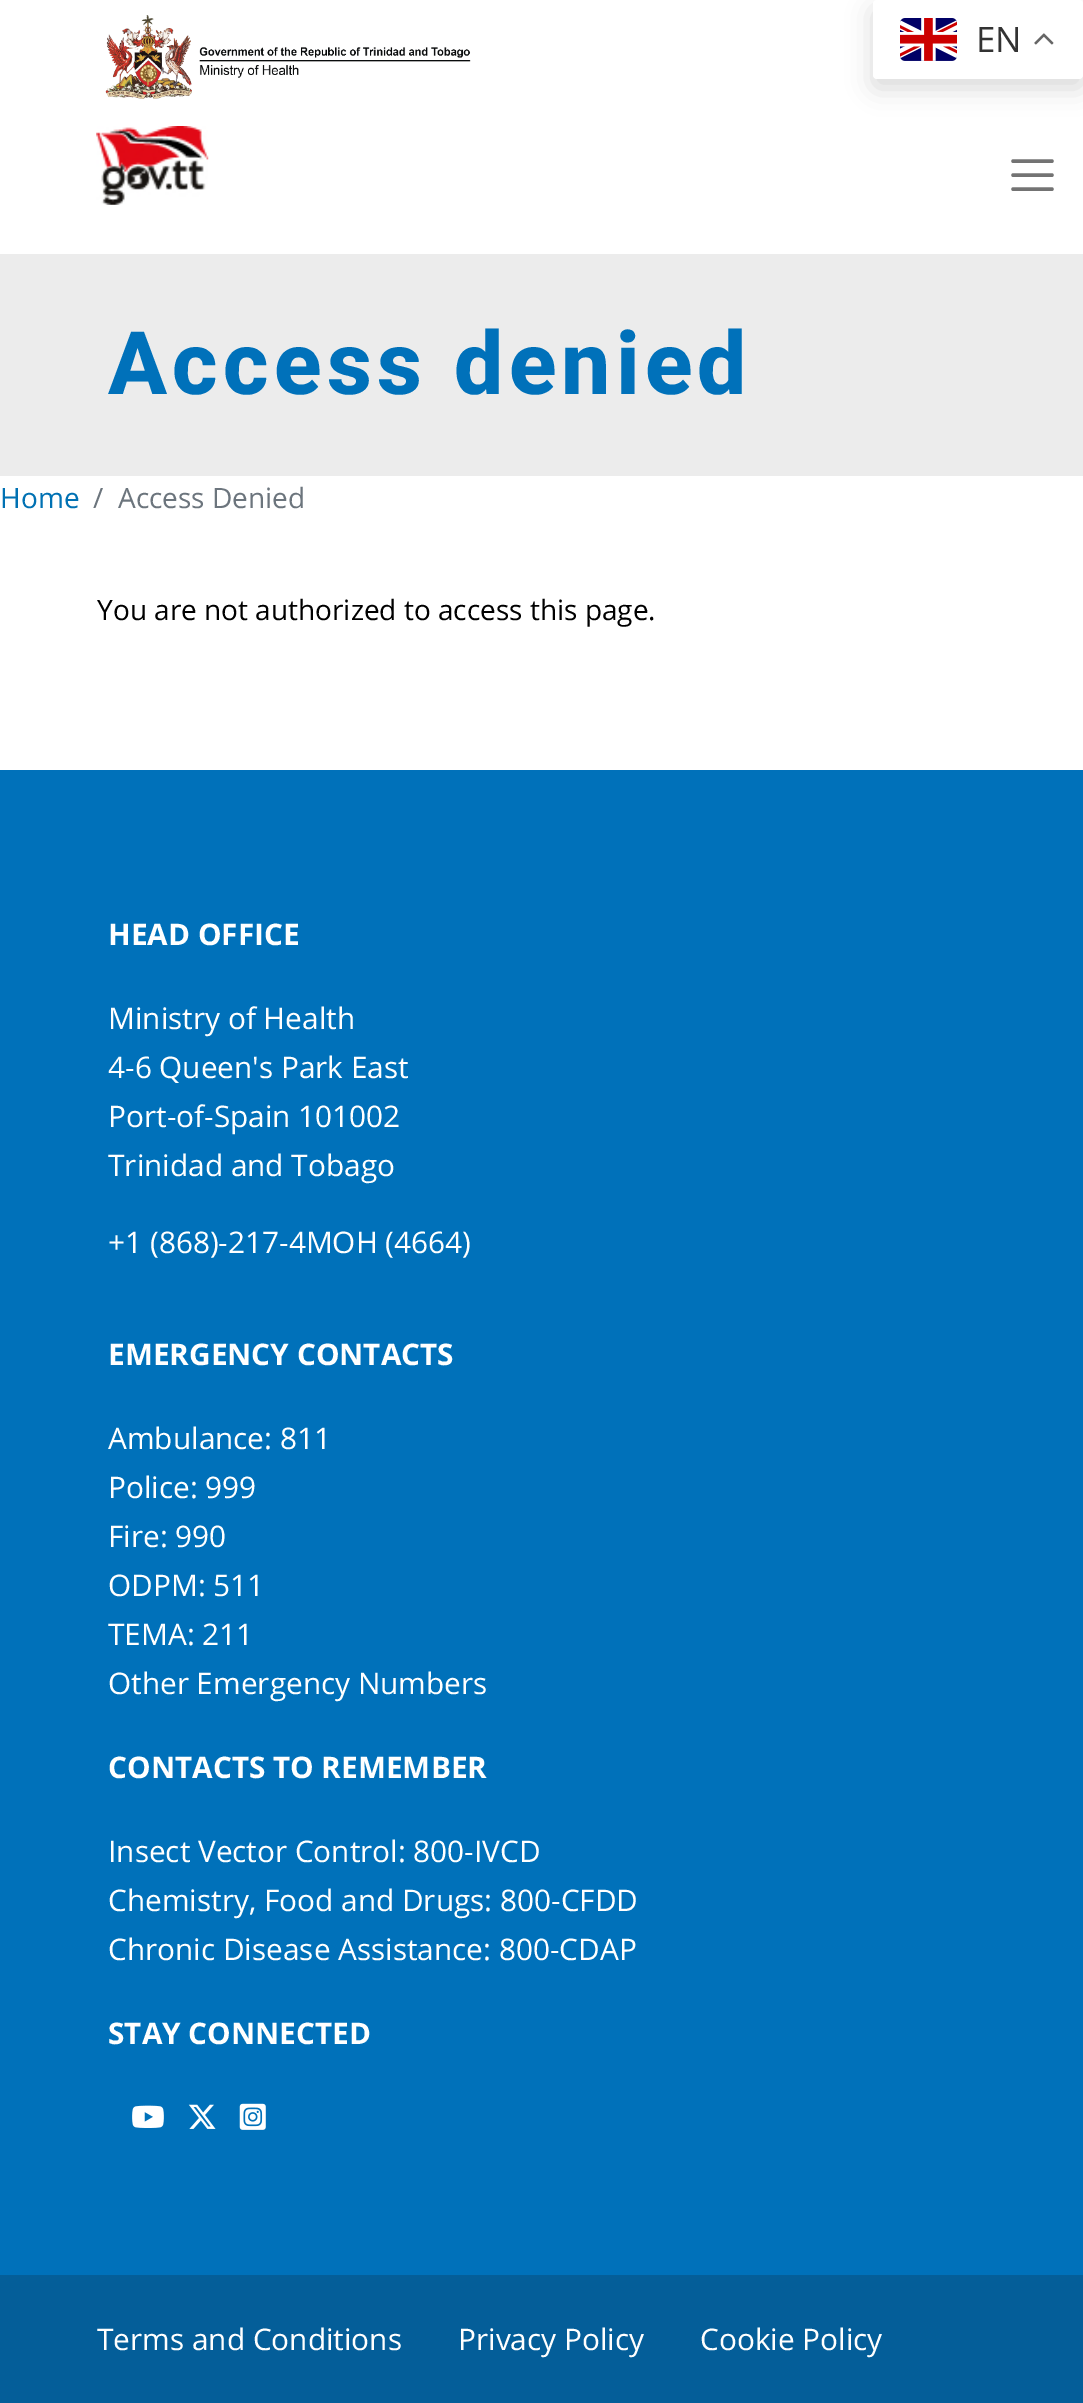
%!PS-Adobe-3.0
%%BoundingBox: 0 0 1083 2403
%%LanguageLevel: 3
%%Pages: 1
%%EndComments
%%BeginProlog
/m { moveto } bind def
/l { lineto } bind def
/f { fill } bind def
/S { stroke } bind def
/w { setlinewidth } bind def
/fn { [ exch dup neg 0 0 3 -1 roll 0 0 ] selectfont } def
/tx { moveto show } def
/bx { rectfill } def
/al { dup .setfillconstantalpha .setstrokeconstantalpha } def
/rr { 5 dict begin { /r /h /w /y /x } { exch def } forall
  x r add y moveto x w add y 2 copy h add r arct x w add y h add x 1 index r arct
  x y h add x y r arct x y 2 copy exch w add exch r arct closepath end } def
/sh { 12 dict begin { /a /b /q /h /w /y /x } { exch def } forall gsave /was 0 def
  9 -2 -9 { dup b mul 4 div /e exch def 1 sub .425 mul 2.718 exch exp 1 add a .99 .min exch div /now exch def
    1 1 now sub 1 was sub div sub al /was now def
    w h .min e 2 mul add 0 gt { x e sub y e sub w e 2 mul add h e 2 mul add
      q e add b .6 mul add w h .min 2 div e add .min 0 .max rr fill } if } for grestore end } def
/im { 5 dict begin { /h /w /y /x /name } { exch def } forall
  gsave x y translate w h scale
  w h 8 [w 0 0 h 0 0] name (r) file false 3 colorimage grestore end } def
%%EndProlog
%%BeginSetup
<< /PageSize [1083 2403] /PageUsesTransparency true >> setpagedevice
%%EndSetup
%%Page: 1 1
0 .pushpdf14devicefilter
0 2403 translate 1 -1 scale
4 setmiterlimit
1 setgray
0 0 1083 2403 bx
(image0.raw) 105 15 366 84 im
(image1.raw) 96 126 113 79 im
0 setgray
873 9 210 79 4 13 0.15 sh
1 setgray
873 0 210 79 4 rr f
(image2.raw) 900 18 57 43 im
/OpenSans-Regular 35 fn
0.2 setgray
(EN) 976 52 tx
(image3.raw) 1034 33 20 12 im
0.451 setgray
3.5 w
1 setlinecap
1013 161 m 1052 161 l 1013 175 m 1052 175 l 1013 189 m 1052 189 l S
0.925 setgray
0 254 1083 222 bx
/Roboto-ExtraBold 87.5 fn
0 0.443 0.729 setrgbcolor
108 394 m 5.25 0 (Access denied) ashow
/OpenSans-Regular 28 fn
0 0.443 0.702 setrgbcolor
(Home) 0 508 tx
0.424 0.459 0.49 setrgbcolor
(/) 93 508 tx
(Access Denied) 118 508 tx
0 setgray
(You are not authorized to access this page.) 97 620 tx
0 0.443 0.729 setrgbcolor
0 770 1083 1505 bx
/OpenSans-Bold 29.75 fn
1 setgray
(HEAD OFFICE) 108 945 tx
/OpenSans-Regular 29.75 fn
(Ministry of Health) 108 1029 tx
(4-6 Queen's Park East) 108 1078 tx
(Port-of-Spain 101002) 108 1127 tx
(Trinidad and Tobago) 108 1176 tx
(+1 \(868\)-217-4MOH \(4664\)) 108 1253 tx
/OpenSans-Bold 29.75 fn
(EMERGENCY CONTACTS) 108 1365 tx
/OpenSans-Regular 29.75 fn
(Ambulance: 811) 108 1449 tx
(Police: 999) 108 1498 tx
(Fire: 990) 108 1547 tx
(ODPM: 511) 108 1596 tx
(TEMA: 211) 108 1645 tx
(Other Emergency Numbers) 108 1694 tx
/OpenSans-Bold 29.75 fn
(CONTACTS TO REMEMBER) 108 1778 tx
/OpenSans-Regular 29.75 fn
(Insect Vector Control: 800-IVCD) 108 1862 tx
(Chemistry, Food and Drugs: 800-CFDD) 108 1911 tx
(Chronic Disease Assistance: 800-CDAP) 108 1960 tx
/OpenSans-Bold 29.75 fn
(STAY CONNECTED) 108 2044 tx
(image4.raw) 132 2105 32 23 im
(image5.raw) 188 2104 28 25 im
(image6.raw) 239 2103 27 27 im
0.016 0.369 0.6 setrgbcolor
0 2275 1083 128 bx
/OpenSans-Regular 29.75 fn
1 setgray
(Terms and Conditions) 97 2350 tx
(Privacy Policy) 458 2350 tx
(Cookie Policy) 700 2350 tx
.poppdf14devicefilter showpage
%%EOF
